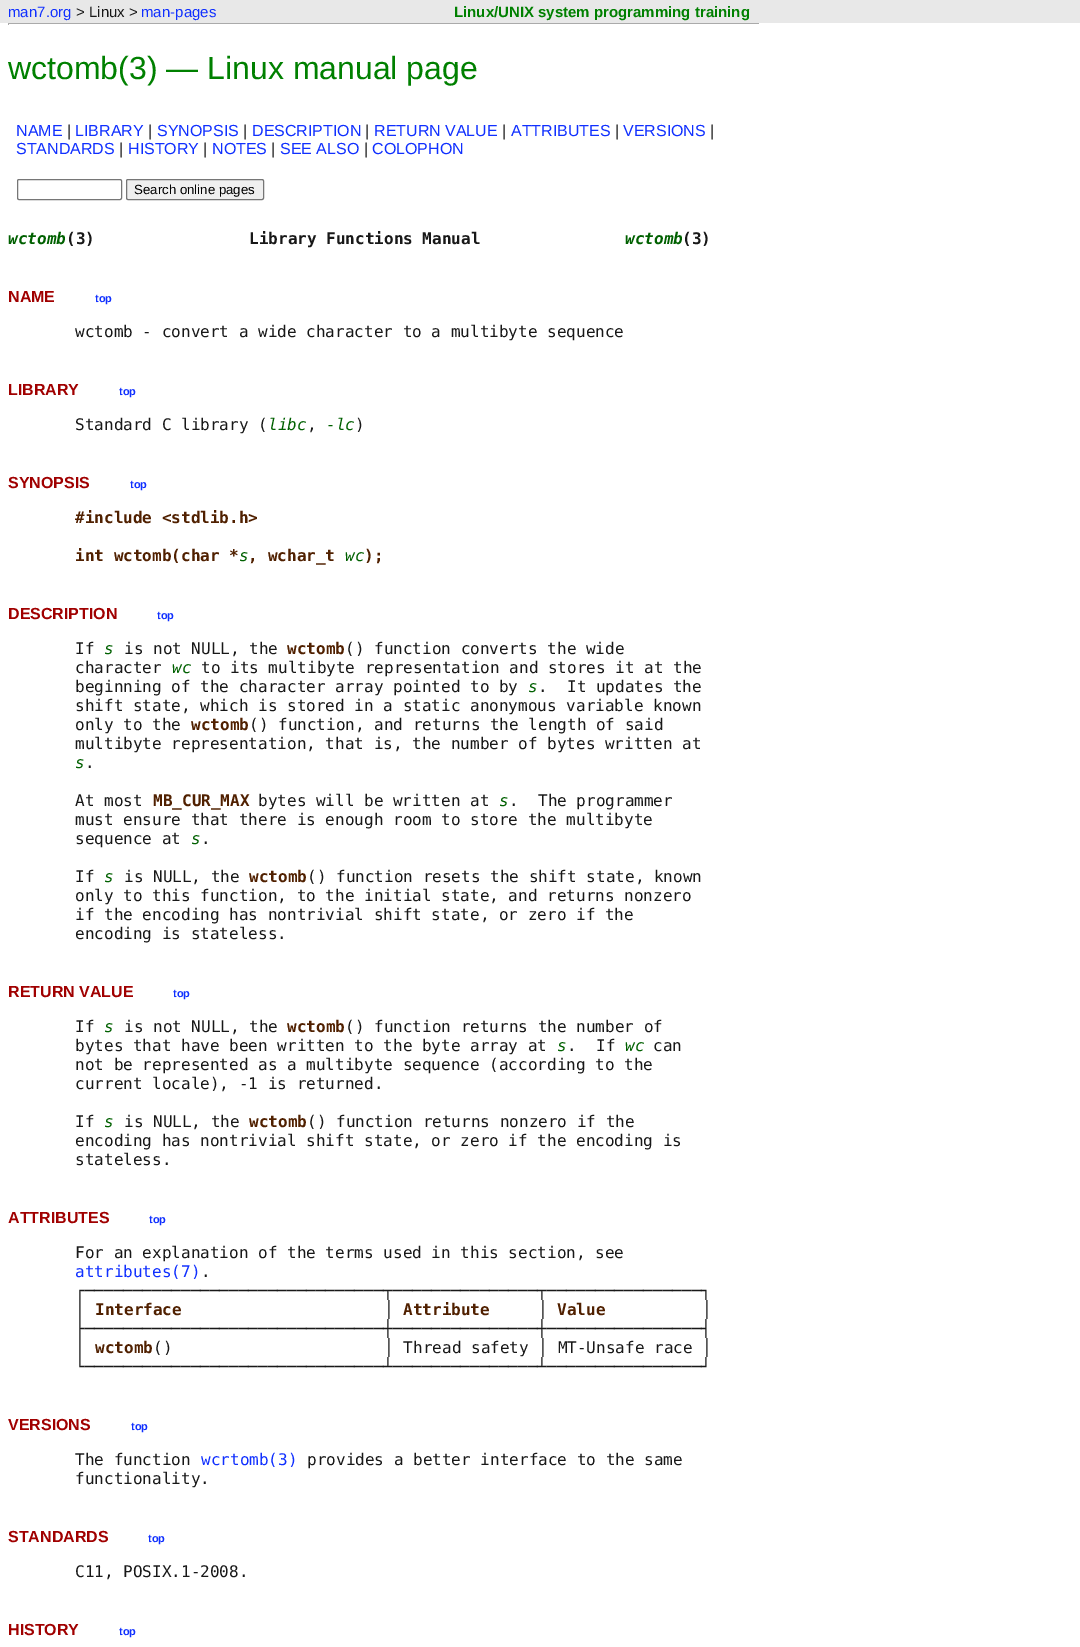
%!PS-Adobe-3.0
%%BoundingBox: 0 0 1080 1647
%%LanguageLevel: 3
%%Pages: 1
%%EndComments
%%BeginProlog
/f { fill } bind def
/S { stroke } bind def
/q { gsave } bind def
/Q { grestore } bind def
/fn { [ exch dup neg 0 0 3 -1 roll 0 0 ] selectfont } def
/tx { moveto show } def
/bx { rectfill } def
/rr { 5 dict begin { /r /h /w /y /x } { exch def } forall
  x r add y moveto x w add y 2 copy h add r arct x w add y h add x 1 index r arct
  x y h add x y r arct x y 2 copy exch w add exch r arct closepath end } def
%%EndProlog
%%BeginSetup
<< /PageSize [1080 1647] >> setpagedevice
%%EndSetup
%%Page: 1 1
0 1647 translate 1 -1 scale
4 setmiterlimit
1 setgray
0 0 1080 1647 bx
0.91 setgray
0 0 1080 23 bx
/LiberationSans-Regular 15 fn
0.063 0.188 1 setrgbcolor
(man7.org) 8 17 tx
0.094 setgray
(> Linux >) 76 17 tx
0.063 0.188 1 setrgbcolor
(man-pages) 141 17 tx
/LiberationSans-Bold 15 fn
0 0.502 0 setrgbcolor
(Linux/UNIX system programming training) 454 17 tx
0.667 setgray
8 23 752 1 bx
1 setgray
759 23 1 2 bx
0.667 setgray
8 23 1 2 bx
/LiberationSans-Regular 32 fn
0 0.502 0 setrgbcolor
(wctomb\(3\) — Linux manual page) 8 79 tx
/LiberationSans-Regular 16 fn
0.063 0.188 1 setrgbcolor
(NAME) 16 136 tx
0.094 setgray
(|) 67 136 tx
0.063 0.188 1 setrgbcolor
(LIBRARY) 75 136 tx
0.094 setgray
(|) 148 136 tx
0.063 0.188 1 setrgbcolor
(SYNOPSIS) 157 136 tx
0.094 setgray
(|) 243 136 tx
0.063 0.188 1 setrgbcolor
(DESCRIPTION) 252 136 tx
0.094 setgray
(|) 365 136 tx
0.063 0.188 1 setrgbcolor
(RETURN VALUE) 374 136 tx
0.094 setgray
(|) 502 136 tx
0.063 0.188 1 setrgbcolor
(ATTRIBUTES) 511 136 tx
0.094 setgray
(|) 615 136 tx
0.063 0.188 1 setrgbcolor
(VERSIONS) 623 136 tx
0.094 setgray
(|) 710 136 tx
0.063 0.188 1 setrgbcolor
(STANDARDS) 16 154 tx
0.094 setgray
(|) 119 154 tx
0.063 0.188 1 setrgbcolor
(HISTORY) 128 154 tx
0.094 setgray
(|) 203 154 tx
0.063 0.188 1 setrgbcolor
(NOTES) 212 154 tx
0.094 setgray
(|) 271 154 tx
0.063 0.188 1 setrgbcolor
(SEE ALSO) 280 154 tx
0.094 setgray
(|) 364 154 tx
0.063 0.188 1 setrgbcolor
(COLOPHON) 372 154 tx
0.463 setgray
17.5 179.5 104 20 1.5 rr S
0.937 setgray
126.5 179.5 137 20 1.5 rr q f Q
0.463 setgray
S
/LiberationSans-Regular 13.25 fn
0 setgray
(Search online pages) 134 194 tx
/DejaVuSansMono-BoldItalic 16 fn
0 0.376 0 setrgbcolor
(wctomb) 8 244 tx
/DejaVuSansMono-Bold 16 fn
0.094 setgray
(\(3\)                Library Functions Manual) 66 244 tx
/DejaVuSansMono-BoldItalic 16 fn
0 0.376 0 setrgbcolor
(wctomb) 625 244 tx
/DejaVuSansMono-Bold 16 fn
0.094 setgray
(\(3\)) 682 244 tx
/LiberationSans-Bold 16 fn
0.627 0 0 setrgbcolor
(NAME) 8 302 tx
/LiberationSans-Bold 11 fn
0.063 0.188 1 setrgbcolor
(top) 95 302 tx
/DejaVuSansMono-Regular 16 fn
0.094 setgray
(wctomb - convert a wide character to a multibyte sequence) 75 337 tx
/LiberationSans-Bold 16 fn
0.627 0 0 setrgbcolor
(LIBRARY) 8 395 tx
/LiberationSans-Bold 11 fn
0.063 0.188 1 setrgbcolor
(top) 119 395 tx
/DejaVuSansMono-Regular 16 fn
0.094 setgray
(Standard C library \() 75 430 tx
/DejaVuSansMono-Italic 16 fn
0 0.376 0 setrgbcolor
(libc) 268 430 tx
/DejaVuSansMono-Regular 16 fn
0.094 setgray
(,) 307 430 tx
/DejaVuSansMono-Italic 16 fn
0 0.376 0 setrgbcolor
(-lc) 326 430 tx
/DejaVuSansMono-Regular 16 fn
0.094 setgray
(\)) 355 430 tx
/LiberationSans-Bold 16 fn
0.627 0 0 setrgbcolor
(SYNOPSIS) 8 488 tx
/LiberationSans-Bold 11 fn
0.063 0.188 1 setrgbcolor
(top) 130 488 tx
/DejaVuSansMono-Bold 16 fn
0.314 0.125 0 setrgbcolor
(#include <stdlib.h>) 75 523 tx
(int wctomb\(char * , wchar_t) 75 561 tx
(\);) 364 561 tx
/DejaVuSansMono-Italic 16 fn
0 0.376 0 setrgbcolor
(s) 239 561 tx
(wc) 345 561 tx
/LiberationSans-Bold 16 fn
0.627 0 0 setrgbcolor
(DESCRIPTION) 8 619 tx
/LiberationSans-Bold 11 fn
0.063 0.188 1 setrgbcolor
(top) 157 619 tx
/DejaVuSansMono-Regular 16 fn
0.094 setgray
(If) 75 654 tx
/DejaVuSansMono-Italic 16 fn
0 0.376 0 setrgbcolor
(s) 104 654 tx
/DejaVuSansMono-Regular 16 fn
0.094 setgray
(is not NULL, the) 124 654 tx
/DejaVuSansMono-Bold 16 fn
0.314 0.125 0 setrgbcolor
(wctomb) 287 654 tx
/DejaVuSansMono-Regular 16 fn
0.094 setgray
(\(\) function converts the wide) 345 654 tx
(character) 75 673 tx
/DejaVuSansMono-Italic 16 fn
0 0.376 0 setrgbcolor
(wc) 172 673 tx
/DejaVuSansMono-Regular 16 fn
0.094 setgray
(to its multibyte representation and stores it at the) 201 673 tx
(beginning of the character array pointed to by) 75 692 tx
/DejaVuSansMono-Italic 16 fn
0 0.376 0 setrgbcolor
(s) 528 692 tx
/DejaVuSansMono-Regular 16 fn
0.094 setgray
(.  It updates the) 538 692 tx
(shift state, which is stored in a static anonymous variable known) 75 711 tx
(only to the) 75 730 tx
/DejaVuSansMono-Bold 16 fn
0.314 0.125 0 setrgbcolor
(wctomb) 191 730 tx
/DejaVuSansMono-Regular 16 fn
0.094 setgray
(\(\) function, and returns the length of said) 249 730 tx
(multibyte representation, that is, the number of bytes written at) 75 749 tx
/DejaVuSansMono-Italic 16 fn
0 0.376 0 setrgbcolor
(s) 75 768 tx
/DejaVuSansMono-Regular 16 fn
0.094 setgray
(.) 85 768 tx
(At most) 75 806 tx
/DejaVuSansMono-Bold 16 fn
0.314 0.125 0 setrgbcolor
(MB_CUR_MAX) 153 806 tx
/DejaVuSansMono-Regular 16 fn
0.094 setgray
(bytes will be written at) 258 806 tx
/DejaVuSansMono-Italic 16 fn
0 0.376 0 setrgbcolor
(s) 499 806 tx
/DejaVuSansMono-Regular 16 fn
0.094 setgray
(.  The programmer) 509 806 tx
(must ensure that there is enough room to store the multibyte) 75 825 tx
(sequence at) 75 844 tx
/DejaVuSansMono-Italic 16 fn
0 0.376 0 setrgbcolor
(s) 191 844 tx
/DejaVuSansMono-Regular 16 fn
0.094 setgray
(.) 201 844 tx
(If) 75 882 tx
/DejaVuSansMono-Italic 16 fn
0 0.376 0 setrgbcolor
(s) 104 882 tx
/DejaVuSansMono-Regular 16 fn
0.094 setgray
(is NULL, the) 124 882 tx
/DejaVuSansMono-Bold 16 fn
0.314 0.125 0 setrgbcolor
(wctomb) 249 882 tx
/DejaVuSansMono-Regular 16 fn
0.094 setgray
(\(\) function resets the shift state, known) 307 882 tx
(only to this function, to the initial state, and returns nonzero) 75 901 tx
(if the encoding has nontrivial shift state, or zero if the) 75 920 tx
(encoding is stateless.) 75 939 tx
/LiberationSans-Bold 16 fn
0.627 0 0 setrgbcolor
(RETURN VALUE) 8 997 tx
/LiberationSans-Bold 11 fn
0.063 0.188 1 setrgbcolor
(top) 173 997 tx
/DejaVuSansMono-Regular 16 fn
0.094 setgray
(If) 75 1032 tx
/DejaVuSansMono-Italic 16 fn
0 0.376 0 setrgbcolor
(s) 104 1032 tx
/DejaVuSansMono-Regular 16 fn
0.094 setgray
(is not NULL, the) 124 1032 tx
/DejaVuSansMono-Bold 16 fn
0.314 0.125 0 setrgbcolor
(wctomb) 287 1032 tx
/DejaVuSansMono-Regular 16 fn
0.094 setgray
(\(\) function returns the number of) 345 1032 tx
(bytes that have been written to the byte array at) 75 1051 tx
/DejaVuSansMono-Italic 16 fn
0 0.376 0 setrgbcolor
(s) 557 1051 tx
/DejaVuSansMono-Regular 16 fn
0.094 setgray
(.  If) 567 1051 tx
/DejaVuSansMono-Italic 16 fn
0 0.376 0 setrgbcolor
(wc) 625 1051 tx
/DejaVuSansMono-Regular 16 fn
0.094 setgray
(can) 653 1051 tx
(not be represented as a multibyte sequence \(according to the) 75 1070 tx
(current locale\), -1 is returned.) 75 1089 tx
(If) 75 1127 tx
/DejaVuSansMono-Italic 16 fn
0 0.376 0 setrgbcolor
(s) 104 1127 tx
/DejaVuSansMono-Regular 16 fn
0.094 setgray
(is NULL, the) 124 1127 tx
/DejaVuSansMono-Bold 16 fn
0.314 0.125 0 setrgbcolor
(wctomb) 249 1127 tx
/DejaVuSansMono-Regular 16 fn
0.094 setgray
(\(\) function returns nonzero if the) 307 1127 tx
(encoding has nontrivial shift state, or zero if the encoding is) 75 1146 tx
(stateless.) 75 1165 tx
/LiberationSans-Bold 16 fn
0.627 0 0 setrgbcolor
(ATTRIBUTES) 8 1223 tx
/LiberationSans-Bold 11 fn
0.063 0.188 1 setrgbcolor
(top) 149 1223 tx
/DejaVuSansMono-Regular 16 fn
0.094 setgray
(For an explanation of the terms used in this section, see) 75 1258 tx
0.063 0.188 1 setrgbcolor
(attributes\(7\)) 75 1277 tx
0.094 setgray
(.) 201 1277 tx
(┌───────────────────────────────┬───────────────┬────────────────┐) 75 1296 tx
(│) 75 1315 tx
/DejaVuSansMono-Bold 16 fn
0.314 0.125 0 setrgbcolor
(Interface) 95 1315 tx
/DejaVuSansMono-Regular 16 fn
0.094 setgray
(│) 384 1315 tx
/DejaVuSansMono-Bold 16 fn
0.314 0.125 0 setrgbcolor
(Attribute) 403 1315 tx
/DejaVuSansMono-Regular 16 fn
0.094 setgray
(│) 538 1315 tx
/DejaVuSansMono-Bold 16 fn
0.314 0.125 0 setrgbcolor
(Value) 557 1315 tx
/DejaVuSansMono-Regular 16 fn
0.094 setgray
(│) 702 1315 tx
(├───────────────────────────────┼───────────────┼────────────────┤) 75 1334 tx
(│) 75 1353 tx
/DejaVuSansMono-Bold 16 fn
0.314 0.125 0 setrgbcolor
(wctomb) 95 1353 tx
/DejaVuSansMono-Regular 16 fn
0.094 setgray
(\(\)                      │ Thread safety │ MT-Unsafe race │) 153 1353 tx
(└───────────────────────────────┴───────────────┴────────────────┘) 75 1372 tx
/LiberationSans-Bold 16 fn
0.627 0 0 setrgbcolor
(VERSIONS) 8 1430 tx
/LiberationSans-Bold 11 fn
0.063 0.188 1 setrgbcolor
(top) 131 1430 tx
/DejaVuSansMono-Regular 16 fn
0.094 setgray
(The function) 75 1465 tx
0.063 0.188 1 setrgbcolor
(wcrtomb\(3\)) 201 1465 tx
0.094 setgray
(provides a better interface to the same) 307 1465 tx
(functionality.) 75 1484 tx
/LiberationSans-Bold 16 fn
0.627 0 0 setrgbcolor
(STANDARDS) 8 1542 tx
/LiberationSans-Bold 11 fn
0.063 0.188 1 setrgbcolor
(top) 148 1542 tx
/DejaVuSansMono-Regular 16 fn
0.094 setgray
(C11, POSIX.1-2008.) 75 1577 tx
/LiberationSans-Bold 16 fn
0.627 0 0 setrgbcolor
(HISTORY) 8 1635 tx
/LiberationSans-Bold 11 fn
0.063 0.188 1 setrgbcolor
(top) 119 1635 tx
showpage
%%EOF
